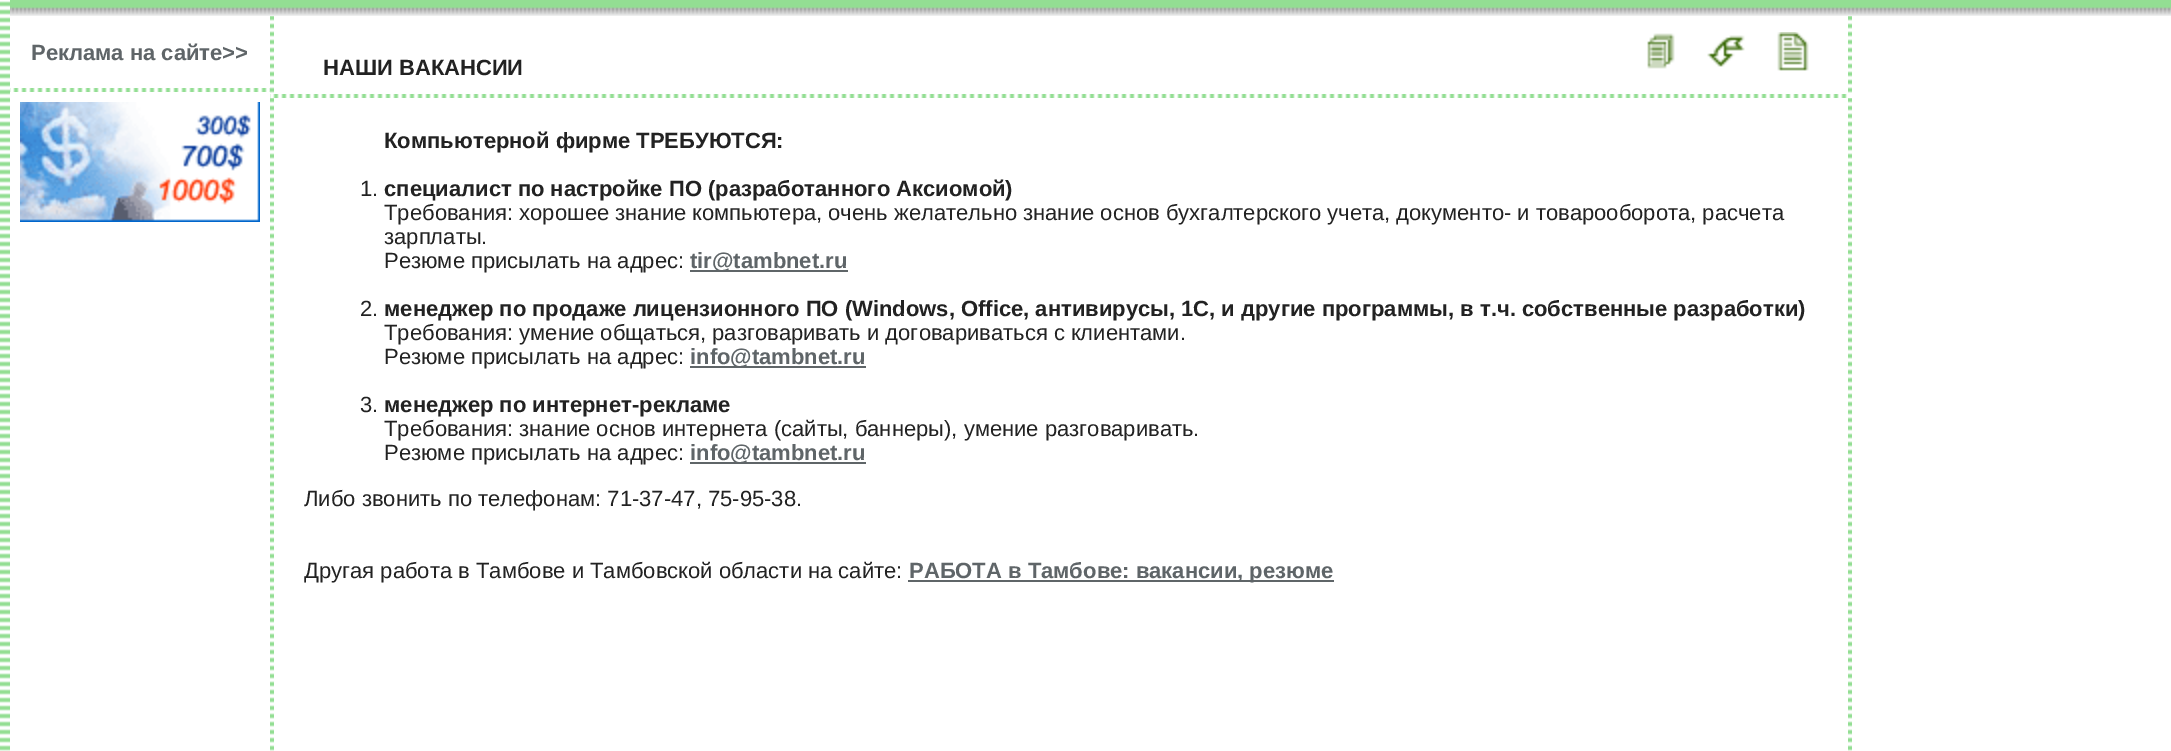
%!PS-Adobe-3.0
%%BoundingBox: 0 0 2171 751
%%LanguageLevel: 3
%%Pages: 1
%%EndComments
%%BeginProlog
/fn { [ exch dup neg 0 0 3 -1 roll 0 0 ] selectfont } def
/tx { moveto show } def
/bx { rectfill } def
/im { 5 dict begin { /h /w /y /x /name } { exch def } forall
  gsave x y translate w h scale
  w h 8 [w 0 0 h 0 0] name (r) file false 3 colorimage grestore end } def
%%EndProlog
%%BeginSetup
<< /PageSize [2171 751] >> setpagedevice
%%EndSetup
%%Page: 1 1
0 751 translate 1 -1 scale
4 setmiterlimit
1 setgray
0 0 2171 751 bx
(image0.raw) 0 1 10 750 im
0.576 0.871 0.576 setrgbcolor
10 0 2161 7 bx
(image1.raw) 10 7 2161 9 im
/LiberationSans-Bold 22 fn
0.373 0.396 0.408 setrgbcolor
(Реклама на сайте>>) 31 60 tx
(image2.raw) 10 88 260 4 im
(image3.raw) 20 102 240 120 im
(image4.raw) 270 16 4 77 im
0.133 setgray
(НАШИ ВАКАНСИИ) 323 75 tx
(image5.raw) 1647 33 28 36 im
(image6.raw) 1707 35 38 32 im
(image7.raw) 1777 32 32 39 im
(image4.raw) 1848 16 4 77 im
(image8.raw) 270 94 1577 4 im
(image9.raw) 270 98 4 653 im
(Компьютерной фирме ТРЕБУЮТСЯ:) 384 148 tx
/LiberationSans-Regular 22 fn
(1.) 360 196 tx
/LiberationSans-Bold 22 fn
(специалист по настройке ПО \(разработанного Аксиомой\)) 384 196 tx
/LiberationSans-Regular 22 fn
(Требования: хорошее знание компьютера, очень желательно знание основ бухгалтерского учета, документо- и товарооборота, расчета) 384 220 tx
(зарплаты.) 384 244 tx
(Резюме присылать на адрес:) 384 268 tx
0.373 0.396 0.408 setrgbcolor
690 270 158 2 bx
/LiberationSans-Bold 22 fn
(tir@tambnet.ru) 690 268 tx
/LiberationSans-Regular 22 fn
0.133 setgray
(2.) 360 316 tx
/LiberationSans-Bold 22 fn
(менеджер по продаже лицензионного ПО \(Windows, Office, антивирусы, 1С, и другие программы, в т.ч. собственные разработки\)) 384 316 tx
/LiberationSans-Regular 22 fn
(Требования: умение общаться, разговаривать и договариваться с клиентами.) 384 340 tx
(Резюме присылать на адрес:) 384 364 tx
0.373 0.396 0.408 setrgbcolor
690 366 176 2 bx
/LiberationSans-Bold 22 fn
(info@tambnet.ru) 690 364 tx
/LiberationSans-Regular 22 fn
0.133 setgray
(3.) 360 412 tx
/LiberationSans-Bold 22 fn
(менеджер по интернет-рекламе) 384 412 tx
/LiberationSans-Regular 22 fn
(Требования: знание основ интернета \(сайты, баннеры\), умение разговаривать.) 384 436 tx
(Резюме присылать на адрес:) 384 460 tx
0.373 0.396 0.408 setrgbcolor
690 462 176 2 bx
/LiberationSans-Bold 22 fn
(info@tambnet.ru) 690 460 tx
/LiberationSans-Regular 22 fn
0.133 setgray
(Либо звонить по телефонам: 71-37-47, 75-95-38.) 304 506 tx
(Другая работа в Тамбове и Тамбовской области на сайте:) 304 578 tx
0.373 0.396 0.408 setrgbcolor
908 580 426 2 bx
/LiberationSans-Bold 22 fn
(РАБОТА в Тамбове: вакансии, резюме) 909 578 tx
(image9.raw) 1848 98 4 653 im
showpage
%%EOF
